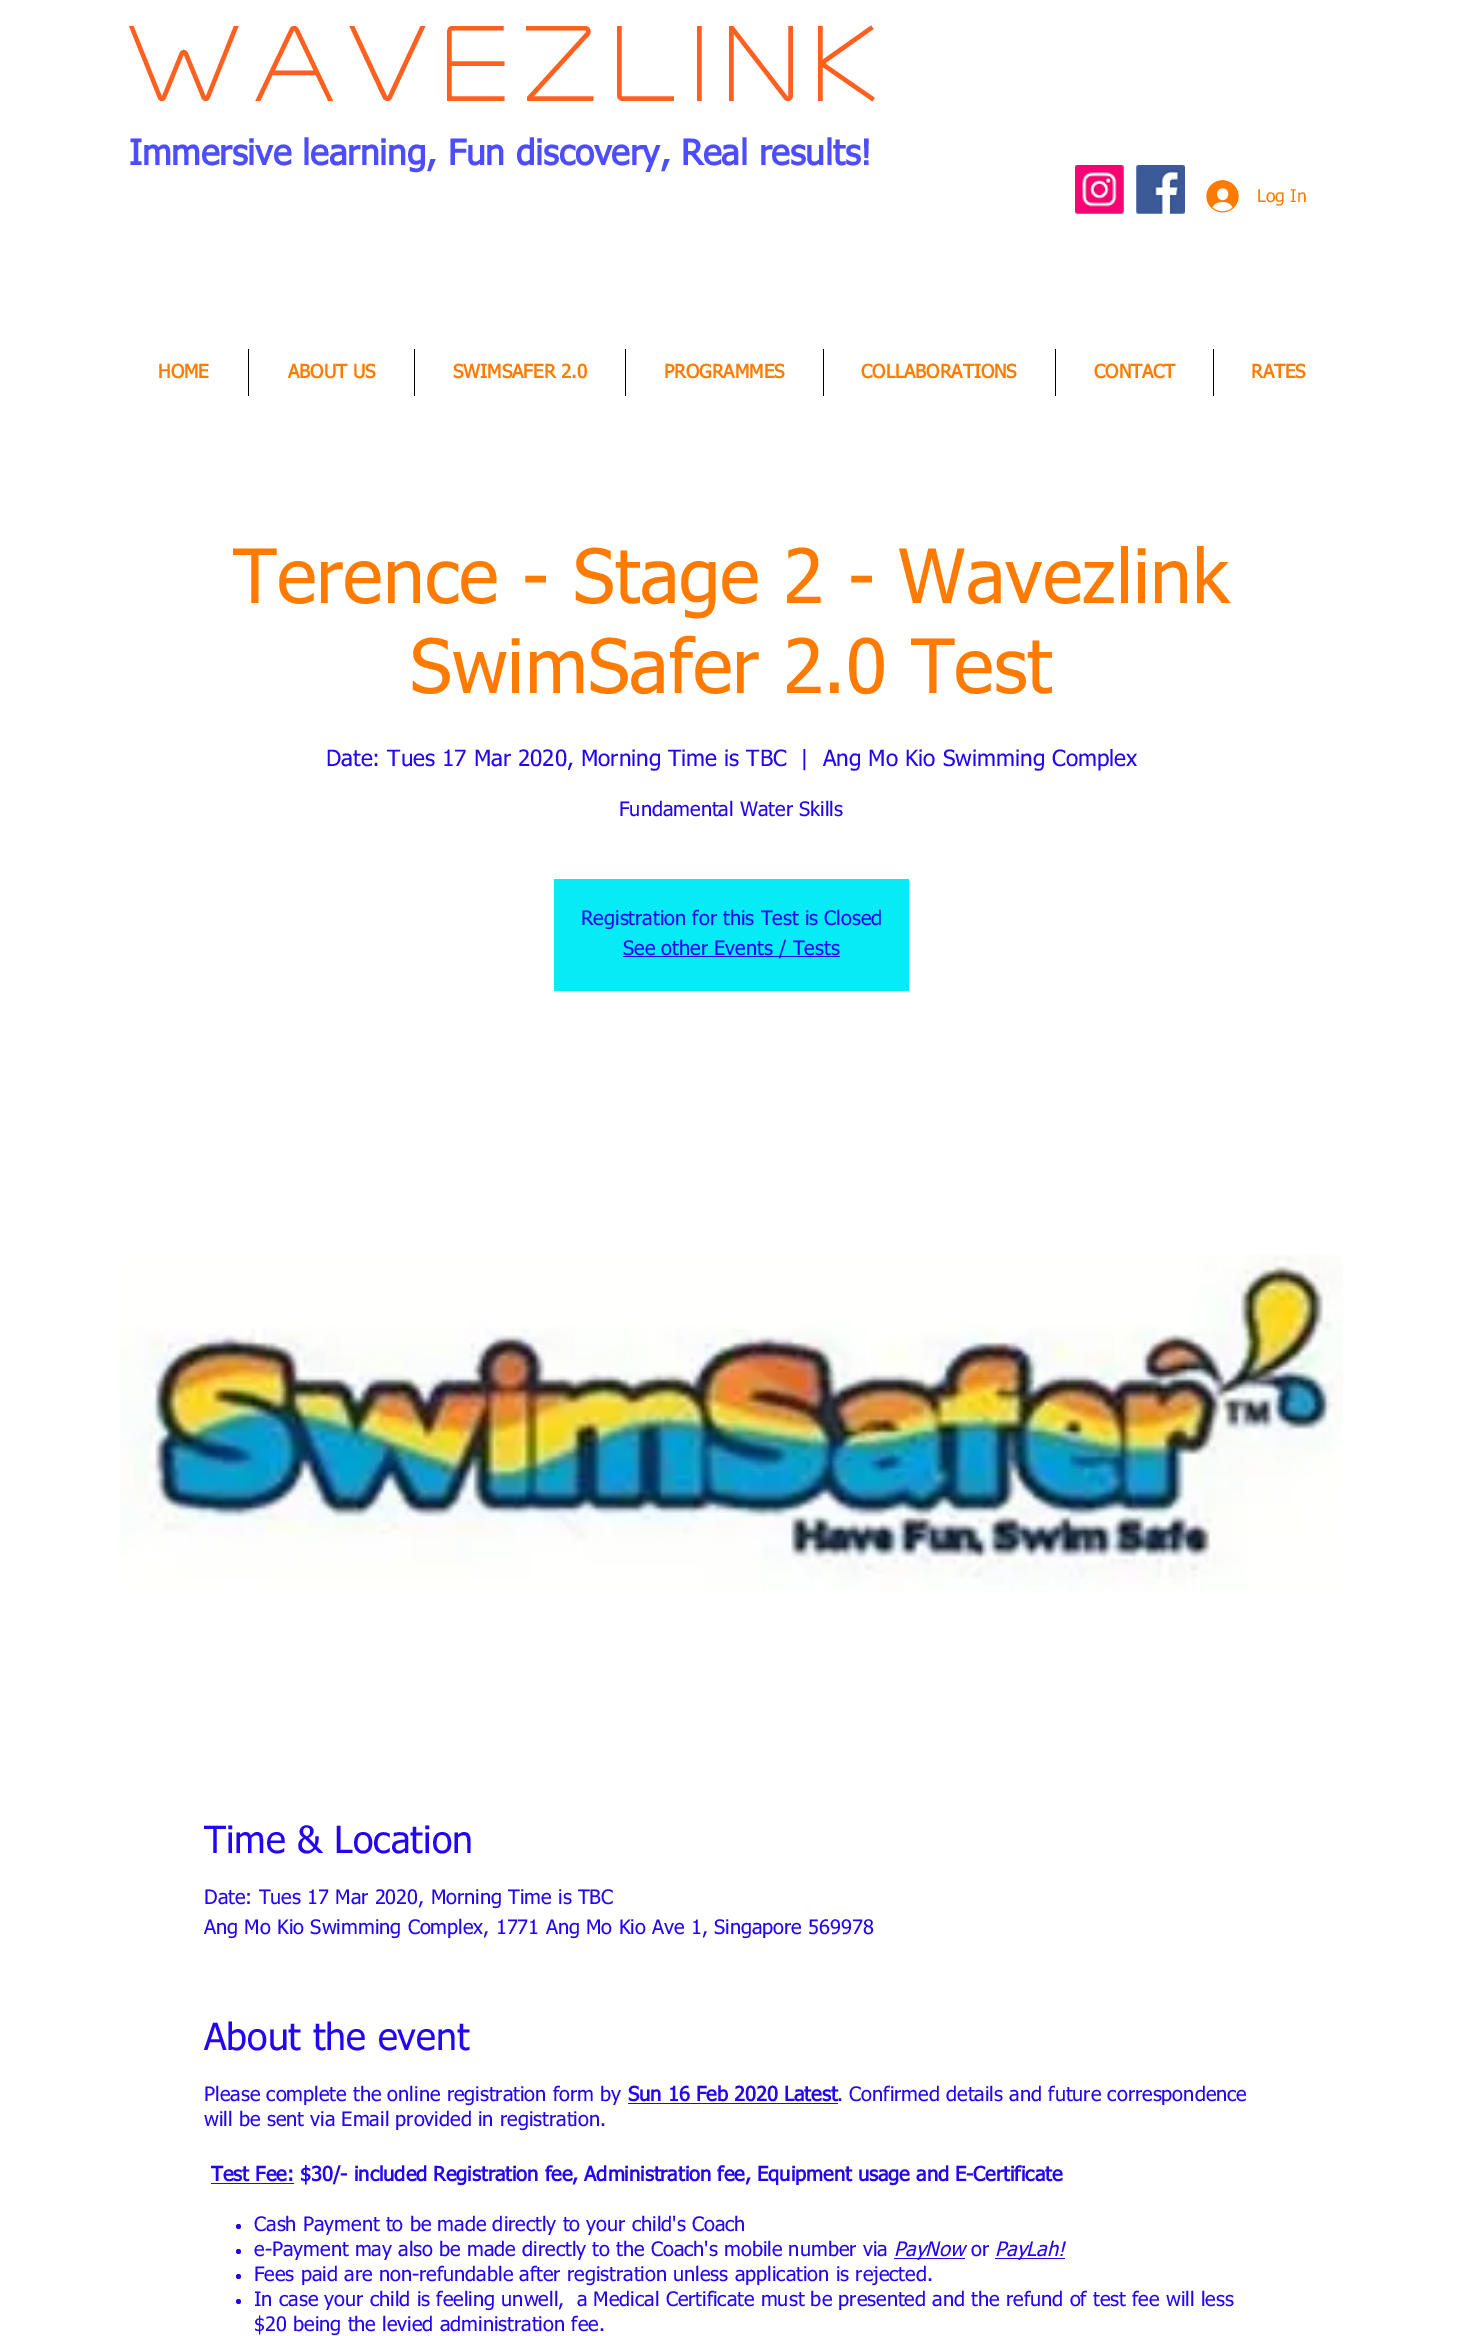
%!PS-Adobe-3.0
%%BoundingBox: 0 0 1462 2336
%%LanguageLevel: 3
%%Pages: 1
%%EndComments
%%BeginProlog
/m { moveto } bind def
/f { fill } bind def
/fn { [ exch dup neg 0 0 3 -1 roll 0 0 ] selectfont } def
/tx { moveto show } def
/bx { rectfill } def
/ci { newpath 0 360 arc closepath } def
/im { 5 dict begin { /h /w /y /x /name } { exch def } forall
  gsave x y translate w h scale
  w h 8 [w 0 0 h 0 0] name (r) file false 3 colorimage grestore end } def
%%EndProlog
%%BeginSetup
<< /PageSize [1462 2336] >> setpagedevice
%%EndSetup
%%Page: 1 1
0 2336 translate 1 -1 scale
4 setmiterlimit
1 setgray
0 0 1462 2336 bx
/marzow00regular-Bold 102.5 fn
1 0.373 0.122 setrgbcolor
129 101 m 20.5 0 (Wavezlink) ashow
/tahoma-Bold 35 fn
0.302 0.302 1 setrgbcolor
(Immersive learning, Fun discovery, Real results!) 129 165 tx
(image0.raw) 1075 165 49 49 im
(image1.raw) 1136 165 49 49 im
(image2.raw) 1206 180 33 33 im
/tahoma-Regular 17.5 fn
1 0.482 0 setrgbcolor
(Log In) 1257 202 tx
/tahoma-Bold 18.75 fn
(HOME) 158 378 tx
0 setgray
248 349 1 47 bx
1 0.482 0 setrgbcolor
(ABOUT US) 288 378 tx
0 setgray
414 349 1 47 bx
1 0.482 0 setrgbcolor
(SWIMSAFER 2.0) 453 378 tx
0 setgray
625 349 1 47 bx
1 0.482 0 setrgbcolor
(PROGRAMMES) 664 378 tx
0 setgray
823 349 1 47 bx
1 0.482 0 setrgbcolor
(COLLABORATIONS) 861 378 tx
0 setgray
1055 349 1 47 bx
1 0.482 0 setrgbcolor
(CONTACT) 1094 378 tx
0 setgray
1213 349 1 47 bx
1 0.482 0 setrgbcolor
(RATES) 1251 378 tx
/tahoma-Regular 75 fn
(Terence - Stage 2 - Wavezlink) 233 603 tx
(SwimSafer 2.0 Test) 410 693 tx
/tahoma-Regular 22.5 fn
0.141 0.02 0.949 setrgbcolor
(Date: Tues 17 Mar 2020, Morning Time is TBC) 326 766 tx
(|) 800 766 tx
(Ang Mo Kio Swimming Complex) 823 766 tx
/tahoma-Regular 20 fn
(Fundamental Water Skills) 619 816 tx
0.027 0.922 0.969 setrgbcolor
554 879 355 112 bx
0.141 0.02 0.949 setrgbcolor
(Registration for this Test is Closed) 581 925 tx
623 956 217 1 bx
(See other Events / Tests) 623 955 tx
(image3.raw) 120 1254 1223 338 im
/tahoma-Regular 37.5 fn
(Time & Location) 204 1853 tx
/tahoma-Regular 20 fn
(Date: Tues 17 Mar 2020, Morning Time is TBC) 204 1904 tx
(Ang Mo Kio Swimming Complex, 1771 Ang Mo Kio Ave 1, Singapore 569978) 204 1934 tx
/tahoma-Regular 37.5 fn
(About the event) 204 2050 tx
/tahoma-Regular 20 fn
(Please complete the online registration form by) 204 2101 tx
/tahoma-Bold 20 fn
(Sun 16 Feb 2020 Latest) 628 2101 tx
628 2103 210 1 bx
/tahoma-Regular 20 fn
(. Confirmed details and future correspondence) 837 2101 tx
(will be sent via Email provided in registration.) 204 2126 tx
211 2183 83 1 bx
/tahoma-Bold 20 fn
(Test Fee: $30/- included Registration fee, Administration fee, Equipment usage and E-Certificate) 211 2181 tx
238.5 2226.5 2.5 ci f
/tahoma-Regular 20 fn
(Cash Payment to be made directly to your child's Coach) 254 2231 tx
238.5 2251.5 2.5 ci f
(e-Payment may also be made directly to the Coach's mobile number via) 254 2256 tx
894 2258 71 1 bx
/tahoma-Italic 20 fn
(PayNow) 894 2256 tx
/tahoma-Regular 20 fn
(or) 971 2256 tx
995 2258 70 1 bx
/tahoma-Italic 20 fn
(PayLah!) 995 2256 tx
238.5 2276.5 2.5 ci f
/tahoma-Regular 20 fn
(Fees paid are non-refundable after registration unless application is rejected.) 254 2281 tx
238.5 2301.5 2.5 ci f
(In case your child is feeling unwell,  a Medical Certificate must be presented and the refund of test fee will less) 254 2306 tx
($20 being the levied administration fee.) 254 2331 tx
showpage
%%EOF
